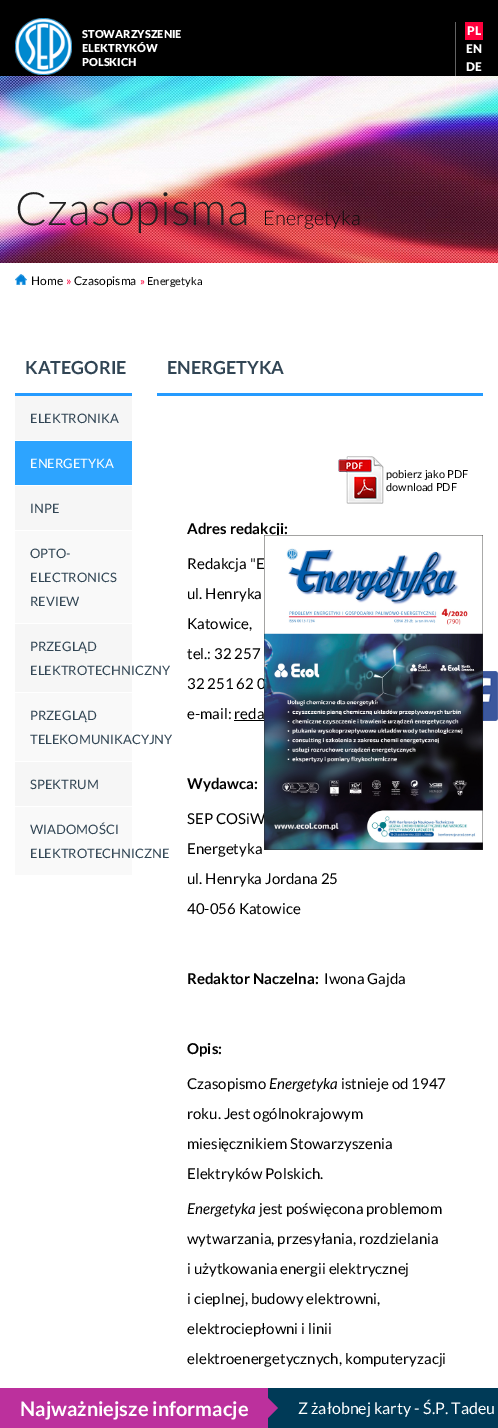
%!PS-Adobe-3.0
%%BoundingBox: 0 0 498 1428
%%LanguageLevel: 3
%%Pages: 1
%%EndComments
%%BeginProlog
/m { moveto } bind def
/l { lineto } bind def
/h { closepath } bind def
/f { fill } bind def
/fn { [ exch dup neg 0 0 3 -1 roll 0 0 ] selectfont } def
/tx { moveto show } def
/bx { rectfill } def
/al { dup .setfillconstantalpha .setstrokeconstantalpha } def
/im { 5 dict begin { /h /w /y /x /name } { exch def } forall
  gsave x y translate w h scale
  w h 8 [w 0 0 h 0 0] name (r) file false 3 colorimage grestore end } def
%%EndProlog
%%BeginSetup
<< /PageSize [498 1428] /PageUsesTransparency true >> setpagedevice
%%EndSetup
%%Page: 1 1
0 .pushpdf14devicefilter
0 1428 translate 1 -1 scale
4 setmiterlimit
1 setgray
0 0 498 1428 bx
0 setgray
0 0 498 76 bx
(image0.raw) 15 18 57 57 im
/Lato-Black 11 fn
1 setgray
(STOWARZYSZENIE) 82 38 tx
(ELEKTRYKÓW) 82 52 tx
(POLSKICH) 82 66 tx
(image1.raw) 0 76 498 187 im
0.39 al
455 22 1 70 bx
1 al
1 0 0.235 setrgbcolor
465 22 18 18 bx
/Lato-Black 12 fn
1 setgray
(PL) 467 35 tx
(EN) 466 53 tx
(DE) 466 71 tx
/Lato-Light 46 fn
0.129 setgray
(Czasopisma) 15 225 tx
/Lato-Light 20 fn
0.043 setgray
(Energetyka) 263 225 tx
(image2.raw) 15 274 12 11 im
/Lato-Regular 12 fn
0 setgray
(Home) 31 285 tx
1 0 0.235 setrgbcolor
(») 66 285 tx
0 setgray
(Czasopisma) 74 285 tx
/Lato-Regular 11 fn
1 0 0.235 setrgbcolor
(») 140 285 tx
0 setgray
(Energetyka) 147 285 tx
0.145 0.608 1 setrgbcolor
15 393 117 3 bx
/Lato-Bold 18 fn
0.192 0.271 0.329 setrgbcolor
(KATEGORIE) 25 374 tx
0.965 setgray
15 396 117 44 bx
/Lato-Regular 13 fn
0.192 0.271 0.329 setrgbcolor
(ELEKTRONIKA) 30 423 tx
0.176 0.643 1 setrgbcolor
15 441 117 44 bx
1 setgray
(ENERGETYKA) 30 468 tx
0.965 setgray
15 486 117 44 bx
0.192 0.271 0.329 setrgbcolor
(INPE) 30 513 tx
0.976 setgray
15 531 117 92 bx
0.192 0.271 0.329 setrgbcolor
(OPTO-) 30 558 tx
(ELECTRONICS) 30 582 tx
(REVIEW) 30 606 tx
0.965 setgray
15 624 117 68 bx
0.192 0.271 0.329 setrgbcolor
(PRZEGLĄD) 30 651 tx
(ELEKTROTECHNICZNY) 30 675 tx
0.976 setgray
15 693 117 68 bx
0.192 0.271 0.329 setrgbcolor
(PRZEGLĄD) 30 720 tx
(TELEKOMUNIKACYJNY) 30 744 tx
0.965 setgray
15 762 117 44 bx
0.192 0.271 0.329 setrgbcolor
(SPEKTRUM) 30 789 tx
0.976 setgray
15 807 117 68 bx
0.192 0.271 0.329 setrgbcolor
(WIADOMOŚCI) 30 834 tx
(ELEKTROTECHNICZNE) 30 858 tx
0.145 0.608 1 setrgbcolor
157 393 326 3 bx
/Lato-Bold 18 fn
0.192 0.271 0.329 setrgbcolor
(ENERGETYKA) 167 374 tx
(image3.raw) 338 456 46 48 im
/Lato-Regular 11 fn
0 setgray
(pobierz jako PDF) 386 478 tx
(download PDF) 386 491 tx
/Lato-Bold 15 fn
(Adres redakcji:) 187 534 tx
/Lato-Regular 15 fn
(Redakcja "E) 187 569 tx
(ul. Henryka) 187 599 tx
(Katowice,) 187 629 tx
(tel.: 32 257) 187 659 tx
(32 251 62 0) 187 689 tx
(e-mail: reda) 187 719 tx
234 720 30 1 bx
(SEP COSiW) 187 824 tx
(image4.raw) 264 535 219 315 im
/Lato-Bold 15 fn
(Wydawca:) 187 789 tx
/Lato-Regular 15 fn
(Energetyka) 187 854 tx
(ul. Henryka Jordana 25) 187 884 tx
(40-056 Katowice) 187 914 tx
/Lato-Bold 15 fn
(Redaktor Naczelna:) 187 984 tx
/Lato-Regular 15 fn
(Iwona Gajda) 324 984 tx
/Lato-Bold 15 fn
(Opis:) 187 1054 tx
/Lato-Regular 15 fn
(Czasopismo) 187 1089 tx
/Lato-Italic 15 fn
(Energetyka) 269 1089 tx
/Lato-Regular 15 fn
(istnieje od 1947) 341 1089 tx
(roku. Jest ogólnokrajowym) 187 1119 tx
(miesięcznikiem Stowarzyszenia) 187 1149 tx
(Elektryków Polskich.) 187 1179 tx
/Lato-Italic 15 fn
(Energetyka) 187 1214 tx
/Lato-Regular 15 fn
(jest poświęcona problemom) 259 1214 tx
(wytwarzania, przesyłania, rozdzielania) 187 1244 tx
(i użytkowania energii elektrycznej) 187 1274 tx
(i cieplnej, budowy elektrowni,) 187 1304 tx
(elektrociepłowni i linii) 187 1334 tx
(elektroenergetycznych, komputeryzacji) 187 1364 tx
0 0.227 0.341 setrgbcolor
268 1388 230 40 bx
0.737 0.188 0.616 setrgbcolor
0 1388 268 40 bx
/Lato-Bold 20 fn
1 setgray
(Najważniejsze informacje) 20 1416 tx
0.737 0.188 0.616 setrgbcolor
268 1418 m 268 1398 l 278 1408 l h f
/Lato-Regular 16 fn
1 setgray
(Z żałobnej karty - Ś.P. Tadeu) 298 1414 tx
(image5.raw) 483 671 15 50 im
.poppdf14devicefilter showpage
%%EOF
